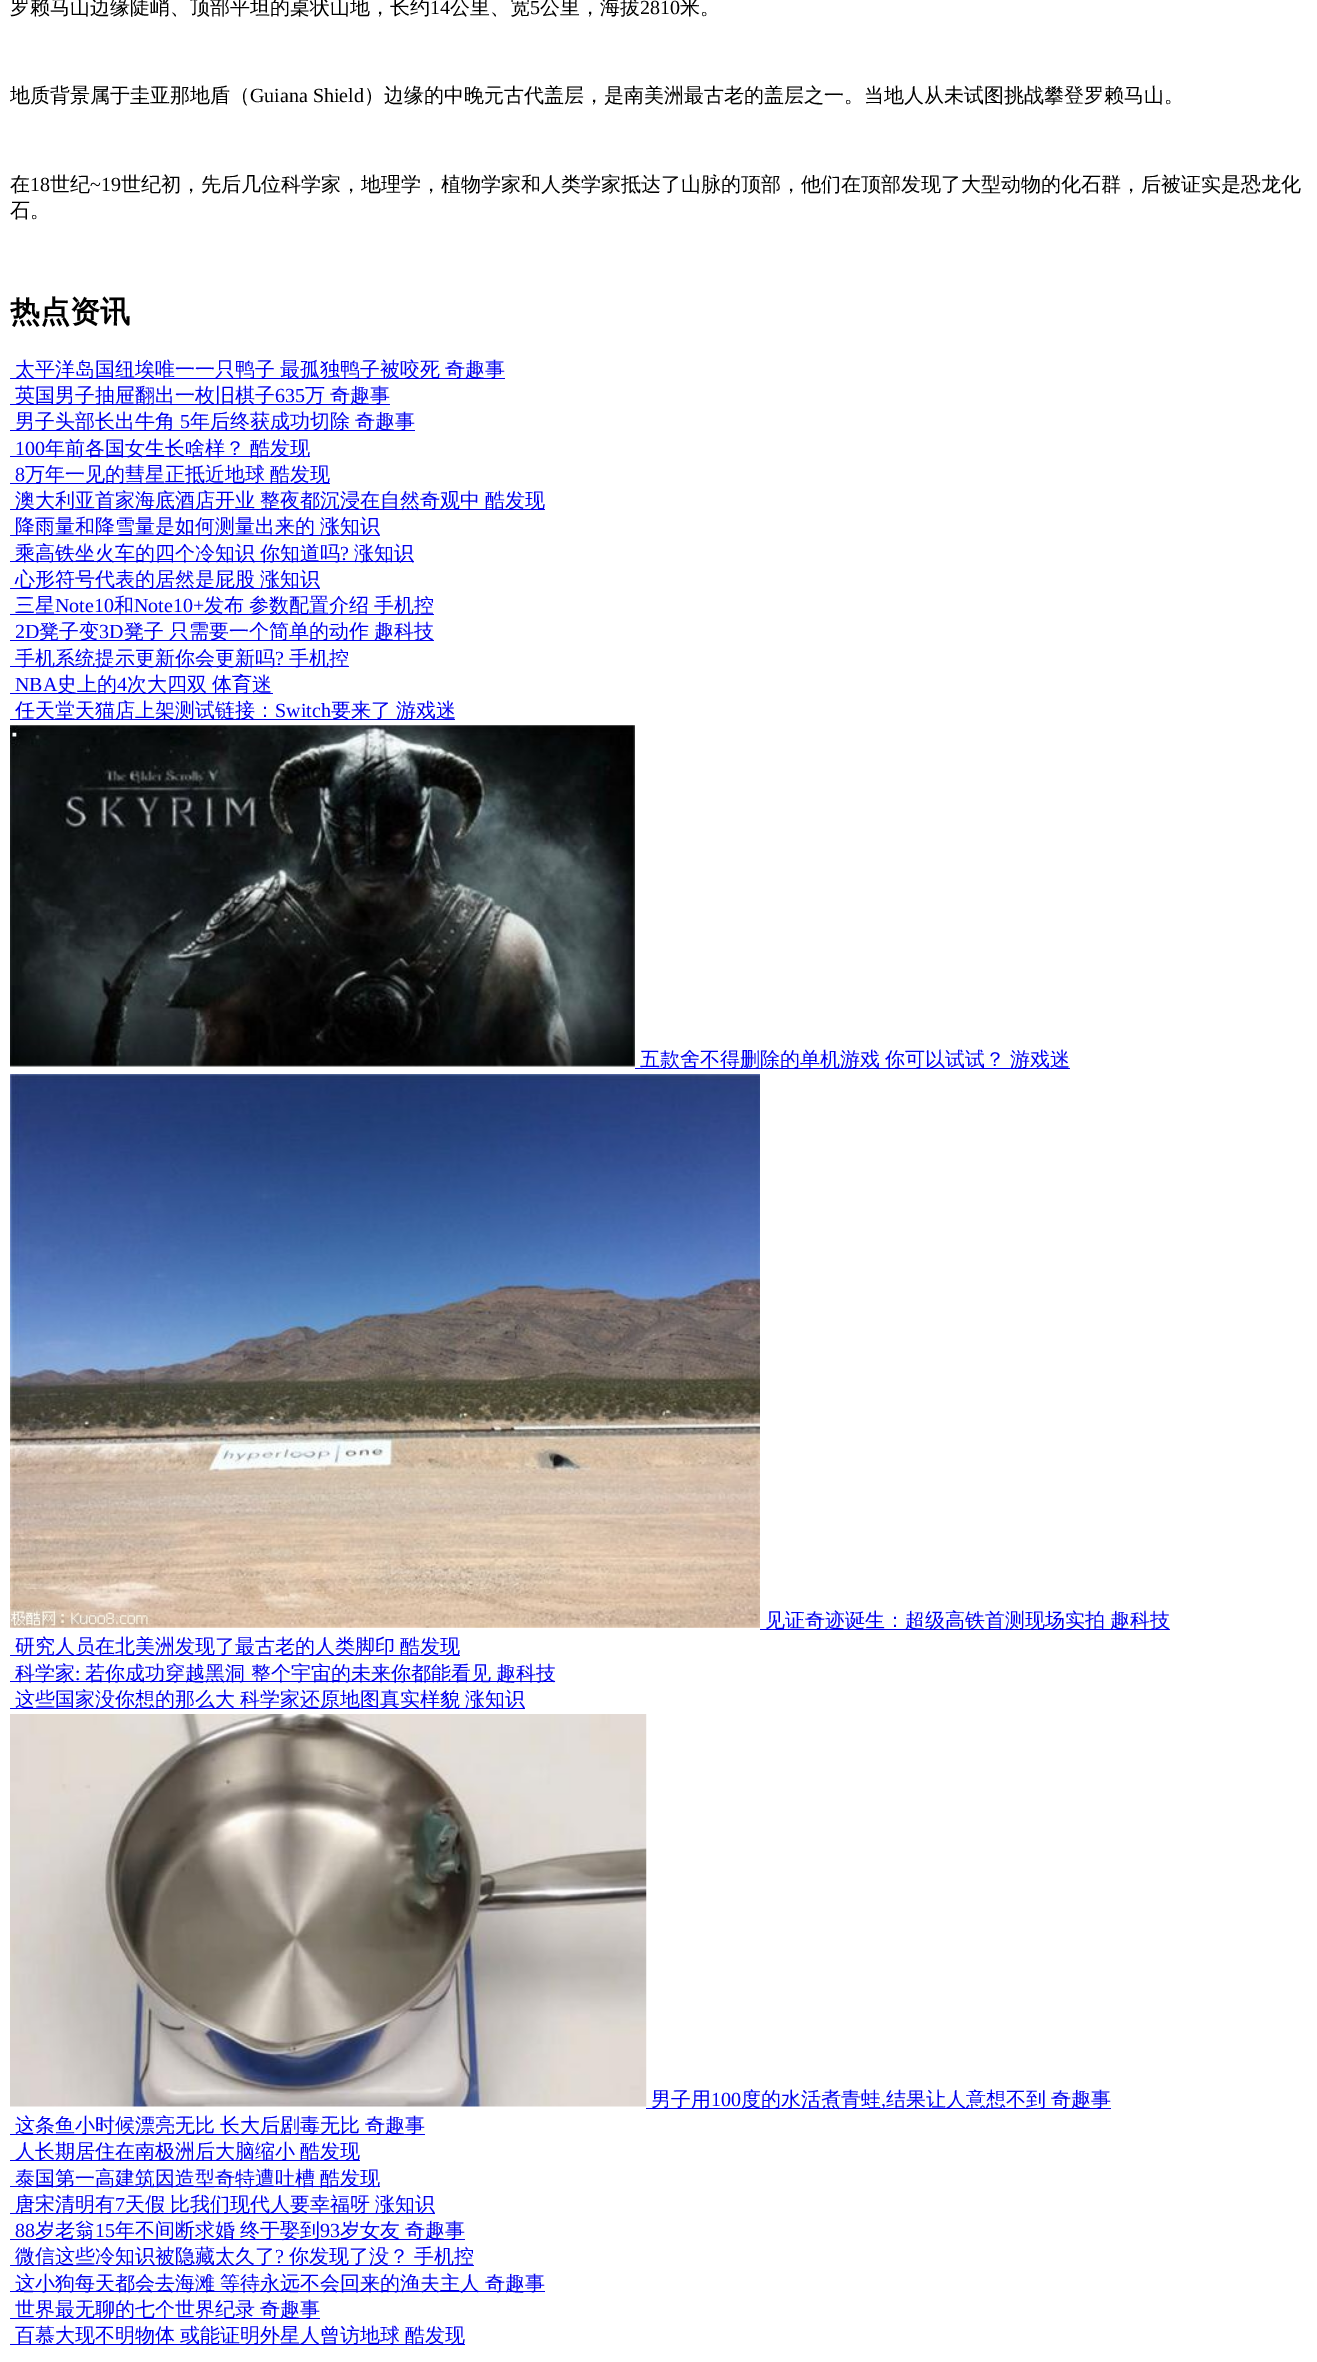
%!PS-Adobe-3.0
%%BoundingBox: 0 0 1317 2362
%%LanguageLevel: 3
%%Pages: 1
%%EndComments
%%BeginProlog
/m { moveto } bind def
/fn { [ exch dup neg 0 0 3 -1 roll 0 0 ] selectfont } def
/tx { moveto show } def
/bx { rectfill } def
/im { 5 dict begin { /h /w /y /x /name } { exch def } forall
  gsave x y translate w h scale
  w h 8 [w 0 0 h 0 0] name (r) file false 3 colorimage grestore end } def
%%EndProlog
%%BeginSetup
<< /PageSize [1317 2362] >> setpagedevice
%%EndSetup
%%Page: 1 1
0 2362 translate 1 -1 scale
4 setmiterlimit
1 setgray
0 0 1317 2362 bx
/WenQuanYiZenHei-Medium 20 fn
0 setgray
(罗赖马山边缘陡峭、顶部平坦的桌状山地，长约) 10 14 tx
/LiberationSerif-Regular 20 fn
(14) 430 14 tx
/WenQuanYiZenHei-Medium 20 fn
(公里、宽) 450 14 tx
/LiberationSerif-Regular 20 fn
(5) 530 14 tx
/WenQuanYiZenHei-Medium 20 fn
(公里，海拔) 540 14 tx
/LiberationSerif-Regular 20 fn
(2810) 640 14 tx
/WenQuanYiZenHei-Medium 20 fn
(米。) 680 14 tx
(地质背景属于圭亚那地盾（) 10 102 tx
/LiberationSerif-Regular 20 fn
(Guiana Shield) 250 102 tx
/WenQuanYiZenHei-Medium 20 fn
(）边缘的中晚元古代盖层，是南美洲最古老的盖层之一。当地人从未试图挑战攀登罗赖马山。) 364 102 tx
(在) 10 191 tx
/LiberationSerif-Regular 20 fn
(18) 30 191 tx
/WenQuanYiZenHei-Medium 20 fn
(世纪) 50 191 tx
/LiberationSerif-Regular 20 fn
(~19) 90 191 tx
/WenQuanYiZenHei-Medium 20 fn
(世纪初，先后几位科学家，地理学，植物学家和人类学家抵达了山脉的顶部，他们在顶部发现了大型动物的化石群，后被证实是恐龙化) 121 191 tx
(石。) 10 217 tx
/WenQuanYiZenHei-Bold 30 fn
(热点资讯) 10 322 tx
0 0 0.933 setrgbcolor
10 378 495 1 bx
/WenQuanYiZenHei-Medium 20 fn
15 376 m -1 0 32 (太平洋岛国纽埃唯一一只鸭子 最孤独鸭子被咬死) widthshow
(奇趣事) 445 376 tx
10 404 380 1 bx
(英国男子抽屉翻出一枚旧棋子) 15 402 tx
/LiberationSerif-Regular 20 fn
(635) 275 402 tx
/WenQuanYiZenHei-Medium 20 fn
(万) 305 402 tx
(奇趣事) 330 402 tx
10 430 405 1 bx
(男子头部长出牛角) 15 428 tx
/LiberationSerif-Regular 20 fn
(5) 180 428 tx
/WenQuanYiZenHei-Medium 20 fn
(年后终获成功切除) 190 428 tx
(奇趣事) 355 428 tx
/LiberationSerif-Regular 20 fn
(100) 15 455 tx
10 456 300 1 bx
/WenQuanYiZenHei-Medium 20 fn
(年前各国女生长啥样？) 45 455 tx
(酷发现) 250 455 tx
/LiberationSerif-Regular 20 fn
(8) 15 481 tx
10 483 320 1 bx
/WenQuanYiZenHei-Medium 20 fn
(万年一见的彗星正抵近地球) 25 481 tx
(酷发现) 270 481 tx
10 509 535 1 bx
15 507 m -1 0 32 (澳大利亚首家海底酒店开业 整夜都沉浸在自然奇观中) widthshow
(酷发现) 485 507 tx
10 535 370 1 bx
(降雨量和降雪量是如何测量出来的) 15 533 tx
(涨知识) 320 533 tx
10 561 404 1 bx
15 560 m -1 0 32 (乘高铁坐火车的四个冷知识 你知道吗) widthshow
/LiberationSerif-Regular 20 fn
(?) 340 560 tx
/WenQuanYiZenHei-Medium 20 fn
(涨知识) 354 560 tx
10 588 310 1 bx
(心形符号代表的居然是屁股) 15 586 tx
(涨知识) 260 586 tx
(三星) 15 612 tx
/LiberationSerif-Regular 20 fn
(Note10) 55 612 tx
10 614 424 1 bx
/WenQuanYiZenHei-Medium 20 fn
(和) 114 612 tx
/LiberationSerif-Regular 20 fn
(Note10+) 134 612 tx
/WenQuanYiZenHei-Medium 20 fn
204 612 m -1 0 32 (发布 参数配置介绍) widthshow
(手机控) 374 612 tx
/LiberationSerif-Regular 20 fn
(2D) 15 638 tx
10 640 424 1 bx
/WenQuanYiZenHei-Medium 20 fn
(凳子变) 39 638 tx
/LiberationSerif-Regular 20 fn
(3D) 99 638 tx
/WenQuanYiZenHei-Medium 20 fn
124 638 m -1 0 32 (凳子 只需要一个简单的动作) widthshow
(趣科技) 374 638 tx
10 666 339 1 bx
(手机系统提示更新你会更新吗) 15 665 tx
/LiberationSerif-Regular 20 fn
(?) 275 665 tx
/WenQuanYiZenHei-Medium 20 fn
(手机控) 289 665 tx
/LiberationSerif-Regular 20 fn
(NBA) 15 691 tx
10 693 263 1 bx
/WenQuanYiZenHei-Medium 20 fn
(史上的) 57 691 tx
/LiberationSerif-Regular 20 fn
(4) 117 691 tx
/WenQuanYiZenHei-Medium 20 fn
(次大四双) 127 691 tx
(体育迷) 212 691 tx
10 719 445 1 bx
(任天堂天猫店上架测试链接：) 15 717 tx
/LiberationSerif-Regular 20 fn
(Switch) 275 717 tx
/WenQuanYiZenHei-Medium 20 fn
(要来了) 331 717 tx
(游戏迷) 396 717 tx
(image0.raw) 10 725 625 342 im
635 1068 435 1 bx
640 1066 m -1 0 32 (五款舍不得删除的单机游戏 你可以试试？) widthshow
(游戏迷) 1010 1066 tx
(image1.raw) 10 1074 750 554 im
760 1629 410 1 bx
(见证奇迹诞生：超级高铁首测现场实拍) 765 1627 tx
(趣科技) 1110 1627 tx
10 1655 450 1 bx
(研究人员在北美洲发现了最古老的人类脚印) 15 1653 tx
(酷发现) 400 1653 tx
10 1681 480 1 bx
(科学家) 15 1680 tx
/LiberationSerif-Regular 20 fn
(:) 75 1680 tx
/WenQuanYiZenHei-Medium 20 fn
(若你成功穿越黑洞 整个宇宙的未来你都能看见) 85 1680 tx
490 1681 65 1 bx
(趣科技) 496 1680 tx
10 1708 515 1 bx
15 1706 m -1 0 32 (这些国家没你想的那么大 科学家还原地图真实样貌) widthshow
(涨知识) 465 1706 tx
(image2.raw) 10 1714 637 393 im
646 2108 465 1 bx
(男子用) 651 2106 tx
/LiberationSerif-Regular 20 fn
(100) 711 2106 tx
/WenQuanYiZenHei-Medium 20 fn
(度的水活煮青蛙) 741 2106 tx
/LiberationSerif-Regular 20 fn
(,) 881 2106 tx
/WenQuanYiZenHei-Medium 20 fn
(结果让人意想不到) 886 2106 tx
(奇趣事) 1051 2106 tx
10 2134 415 1 bx
15 2132 m -1 0 32 (这条鱼小时候漂亮无比 长大后剧毒无比) widthshow
(奇趣事) 365 2132 tx
10 2160 350 1 bx
(人长期居住在南极洲后大脑缩小) 15 2158 tx
(酷发现) 300 2158 tx
10 2186 370 1 bx
(泰国第一高建筑因造型奇特遭吐槽) 15 2185 tx
(酷发现) 320 2185 tx
10 2213 425 1 bx
(唐宋清明有) 15 2211 tx
/LiberationSerif-Regular 20 fn
(7) 115 2211 tx
/WenQuanYiZenHei-Medium 20 fn
125 2211 m -1 0 32 (天假 比我们现代人要幸福呀) widthshow
(涨知识) 375 2211 tx
/LiberationSerif-Regular 20 fn
(88) 15 2237 tx
10 2239 455 1 bx
/WenQuanYiZenHei-Medium 20 fn
(岁老翁) 35 2237 tx
/LiberationSerif-Regular 20 fn
(15) 95 2237 tx
/WenQuanYiZenHei-Medium 20 fn
115 2237 m -1 0 32 (年不间断求婚 终于娶到) widthshow
/LiberationSerif-Regular 20 fn
(93) 320 2237 tx
/WenQuanYiZenHei-Medium 20 fn
(岁女友) 340 2237 tx
(奇趣事) 405 2237 tx
10 2265 464 1 bx
(微信这些冷知识被隐藏太久了) 15 2263 tx
/LiberationSerif-Regular 20 fn
(?) 275 2263 tx
/WenQuanYiZenHei-Medium 20 fn
(你发现了没？) 289 2263 tx
(手机控) 414 2263 tx
10 2291 535 1 bx
15 2290 m -1 0 32 (这小狗每天都会去海滩 等待永远不会回来的渔夫主人) widthshow
(奇趣事) 485 2290 tx
10 2318 310 1 bx
(世界最无聊的七个世界纪录) 15 2316 tx
(奇趣事) 260 2316 tx
10 2344 455 1 bx
15 2342 m -1 0 32 (百慕大现不明物体 或能证明外星人曾访地球) widthshow
(酷发现) 405 2342 tx
showpage
%%EOF
